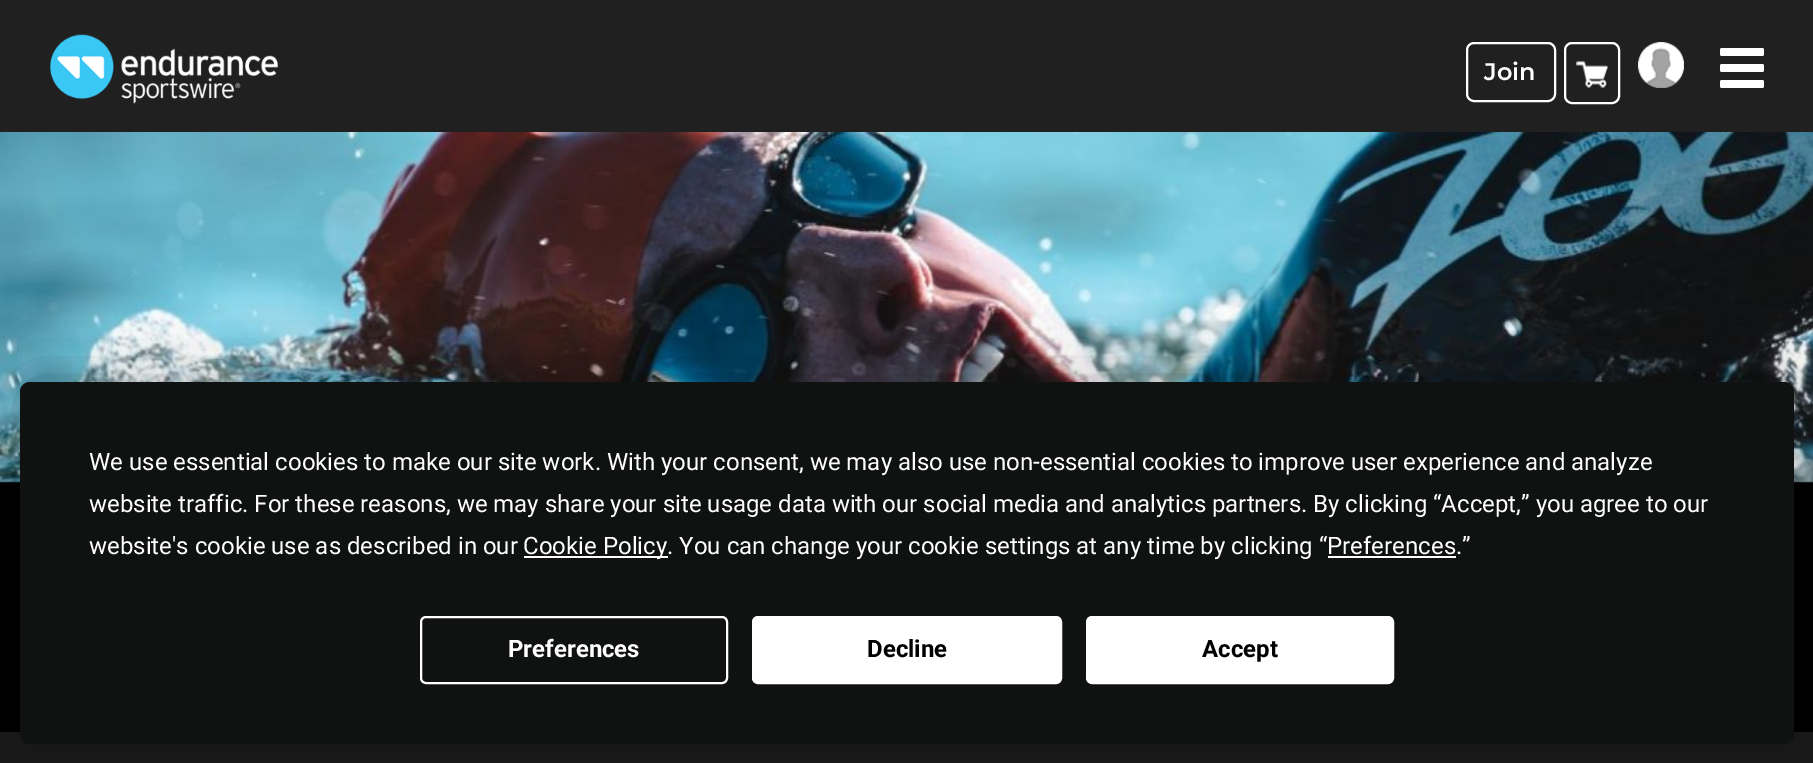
%!PS-Adobe-3.0
%%BoundingBox: 0 0 1813 763
%%LanguageLevel: 3
%%Pages: 1
%%EndComments
%%BeginProlog
/f { fill } bind def
/S { stroke } bind def
/q { gsave } bind def
/Q { grestore } bind def
/w { setlinewidth } bind def
/fn { [ exch dup neg 0 0 3 -1 roll 0 0 ] selectfont } def
/tx { moveto show } def
/bx { rectfill } def
/al { dup .setfillconstantalpha .setstrokeconstantalpha } def
/rr { 5 dict begin { /r /h /w /y /x } { exch def } forall
  x r add y moveto x w add y 2 copy h add r arct x w add y h add x 1 index r arct
  x y h add x y r arct x y 2 copy exch w add exch r arct closepath end } def
/sh { 12 dict begin { /a /b /q /h /w /y /x } { exch def } forall gsave /was 0 def
  9 -2 -9 { dup b mul 4 div /e exch def 1 sub .425 mul 2.718 exch exp 1 add a .99 .min exch div /now exch def
    1 1 now sub 1 was sub div sub al /was now def
    w h .min e 2 mul add 0 gt { x e sub y e sub w e 2 mul add h e 2 mul add
      q e add b .6 mul add w h .min 2 div e add .min 0 .max rr fill } if } for grestore end } def
/im { 5 dict begin { /h /w /y /x /name } { exch def } forall
  gsave x y translate w h scale
  w h 8 [w 0 0 h 0 0] name (r) file false 3 colorimage grestore end } def
%%EndProlog
%%BeginSetup
<< /PageSize [1813 763] /PageUsesTransparency true >> setpagedevice
%%EndSetup
%%Page: 1 1
0 .pushpdf14devicefilter
0 763 translate 1 -1 scale
4 setmiterlimit
0.125 setgray
0 0 1813 763 bx
(image0.raw) 50 34 228 70 im
1 setgray
2 w
1467 43 88 58 7 rr S
/Montserrat-SemiBold 24 fn
(Join) 1484 80 tx
1565 43 54 60 7 rr S
(image1.raw) 1576 61 32 27 im
(image2.raw) 1638 42 46 46 im
1720 48 44 8 2 rr f
1720 64 44 8 2 rr f
1720 80 44 8 2 rr f
0 setgray
0 481 1813 251 bx
(image3.raw) 0 132 1813 351 im
0.102 setgray
0 732 1813 31 bx
0 setgray
20 382 1774 362 10 35 0.25 sh
0.063 0.071 0.071 setrgbcolor
20 382 1774 362 10 rr f
/Roboto-Regular 24 fn
1 setgray
(We use essential cookies to make our site work. With your consent, we may also use non-essential cookies to improve user experience and analyze) 89 470 tx
(website traffic. For these reasons, we may share your site usage data with our social media and analytics partners. By clicking “Accept,” you agree to our) 89 512 tx
(website's cookie use as described in our) 89 554 tx
524 556 144 2 bx
(Cookie Policy. You can change your cookie settings at any time by clicking “Preferences.”) 523 554 tx
1328 556 128 2 bx
421 617 306 66 5 rr S
/Roboto-Bold 24 fn
(Preferences) 508 657 tx
753 617 308 66 5 rr q f Q
S
0 setgray
(Decline) 867 657 tx
1 setgray
1087 617 306 66 5 rr q f Q
S
0 setgray
(Accept) 1202 657 tx
.poppdf14devicefilter showpage
%%EOF
